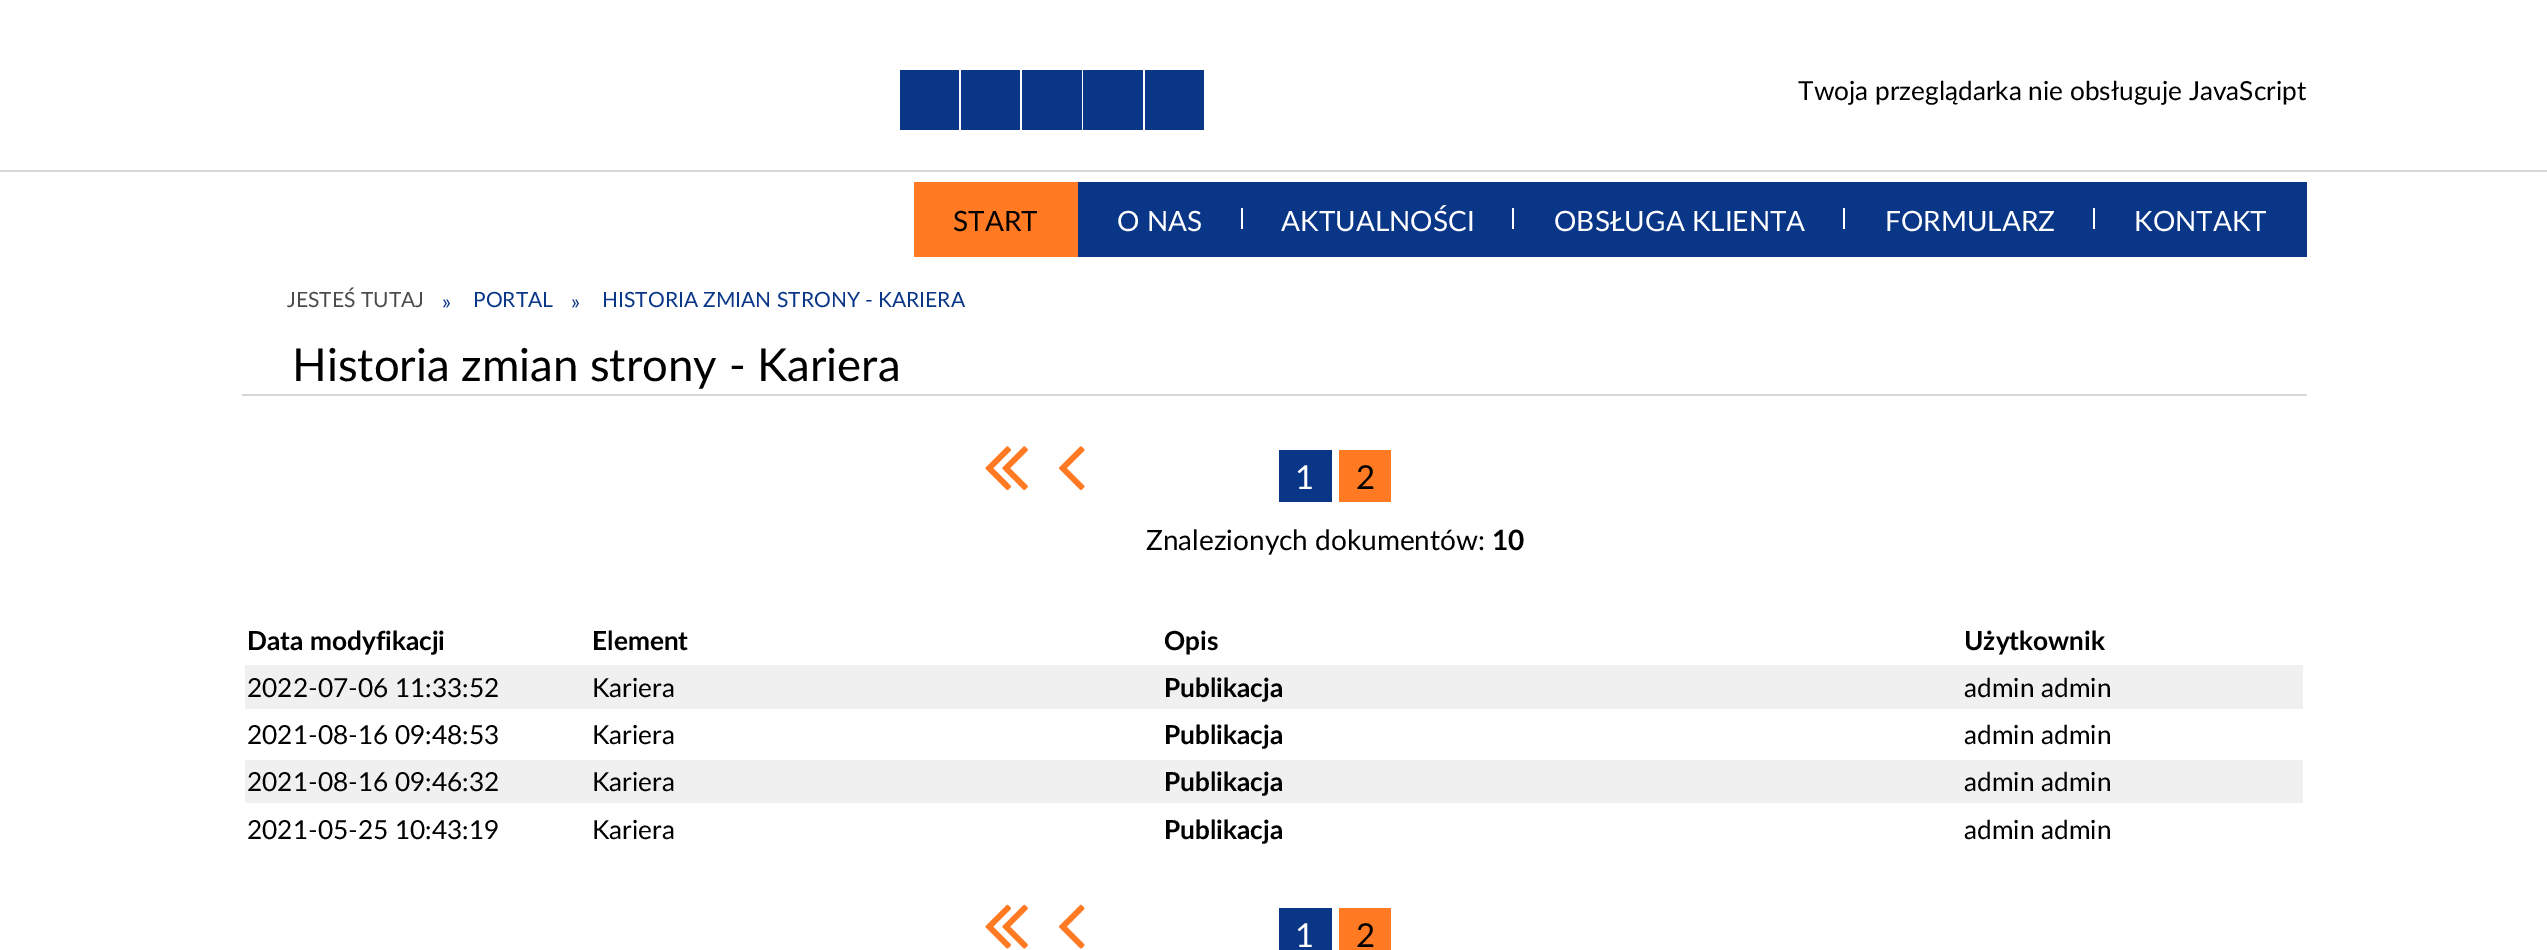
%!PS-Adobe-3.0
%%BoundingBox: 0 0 2547 950
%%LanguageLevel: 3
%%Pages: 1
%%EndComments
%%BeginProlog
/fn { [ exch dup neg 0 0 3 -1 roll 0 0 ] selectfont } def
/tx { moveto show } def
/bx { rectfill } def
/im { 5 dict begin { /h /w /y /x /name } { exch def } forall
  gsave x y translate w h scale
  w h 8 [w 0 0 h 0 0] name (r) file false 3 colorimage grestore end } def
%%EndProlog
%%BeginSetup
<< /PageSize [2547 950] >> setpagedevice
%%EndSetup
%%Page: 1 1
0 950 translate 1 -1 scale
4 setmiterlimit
1 setgray
0 0 2547 950 bx
0.035 0.212 0.529 setrgbcolor
900 70 59 60 bx
961 70 59 60 bx
1022 70 60 60 bx
1083 70 60 60 bx
1145 70 59 60 bx
/Lato-Regular 26.25 fn
0 setgray
(Twoja przeglądarka nie obsługuje JavaScript) 1798 100 tx
1 0.478 0.137 setrgbcolor
914 182 164 75 bx
/Lato-Regular 28 fn
0 setgray
(START) 953 231 tx
0.035 0.212 0.529 setrgbcolor
1078 182 1229 75 bx
1 setgray
(O NAS) 1117 231 tx
1241 208 2 21 bx
(AKTUALNOŚCI) 1281 231 tx
1512 208 2 21 bx
(OBSŁUGA KLIENTA) 1554 231 tx
1843 208 2 21 bx
(FORMULARZ) 1885 231 tx
2093 208 2 21 bx
(KONTAKT) 2134 231 tx
0.843 setgray
0 170 2547 2 bx
/Lato-Regular 21 fn
0.298 setgray
(JESTEŚ TUTAJ) 287 307 tx
0.035 0.212 0.529 setrgbcolor
(») 442 309 tx
(PORTAL) 473 307 tx
(») 571 309 tx
(HISTORIA ZMIAN STRONY - KARIERA) 602 307 tx
0.843 setgray
242 394 2065 2 bx
/Lato-Regular 45.5 fn
0 setgray
(Historia zmian strony - Kariera) 292 381 tx
(image0.raw) 985 446 43 45 im
(image1.raw) 1059 446 26 45 im
0.035 0.212 0.529 setrgbcolor
1279 450 53 52 bx
/Lato-Regular 33 fn
1 setgray
(1) 1295 489 tx
1 0.478 0.137 setrgbcolor
1339 450 52 52 bx
0 setgray
(2) 1356 489 tx
/Lato-Regular 28 fn
(Znalezionych dokumentów:) 1146 550 tx
/Lato-Bold 28 fn
(10) 1492 550 tx
/Lato-Bold 26.25 fn
(Data modyfikacji) 247 650 tx
(Element) 592 650 tx
(Opis) 1164 650 tx
(Użytkownik) 1964 650 tx
0.941 setgray
245 665 2058 44 bx
/Lato-Regular 26.25 fn
0 setgray
(2022-07-06 11:33:52) 247 697 tx
(Kariera) 592 697 tx
/Lato-Bold 26.25 fn
(Publikacja) 1164 697 tx
/Lato-Regular 26.25 fn
(admin admin) 1964 697 tx
(2021-08-16 09:48:53) 247 744 tx
(Kariera) 592 744 tx
/Lato-Bold 26.25 fn
(Publikacja) 1164 744 tx
/Lato-Regular 26.25 fn
(admin admin) 1964 744 tx
0.941 setgray
245 760 2058 43 bx
0 setgray
(2021-08-16 09:46:32) 247 791 tx
(Kariera) 592 791 tx
/Lato-Bold 26.25 fn
(Publikacja) 1164 791 tx
/Lato-Regular 26.25 fn
(admin admin) 1964 791 tx
(2021-05-25 10:43:19) 247 839 tx
(Kariera) 592 839 tx
/Lato-Bold 26.25 fn
(Publikacja) 1164 839 tx
/Lato-Regular 26.25 fn
(admin admin) 1964 839 tx
(image2.raw) 985 904 43 45 im
(image3.raw) 1059 904 26 45 im
0.035 0.212 0.529 setrgbcolor
1279 908 53 42 bx
/Lato-Regular 33 fn
1 setgray
(1) 1295 947 tx
1 0.478 0.137 setrgbcolor
1339 908 52 42 bx
0 setgray
(2) 1356 947 tx
showpage
%%EOF
